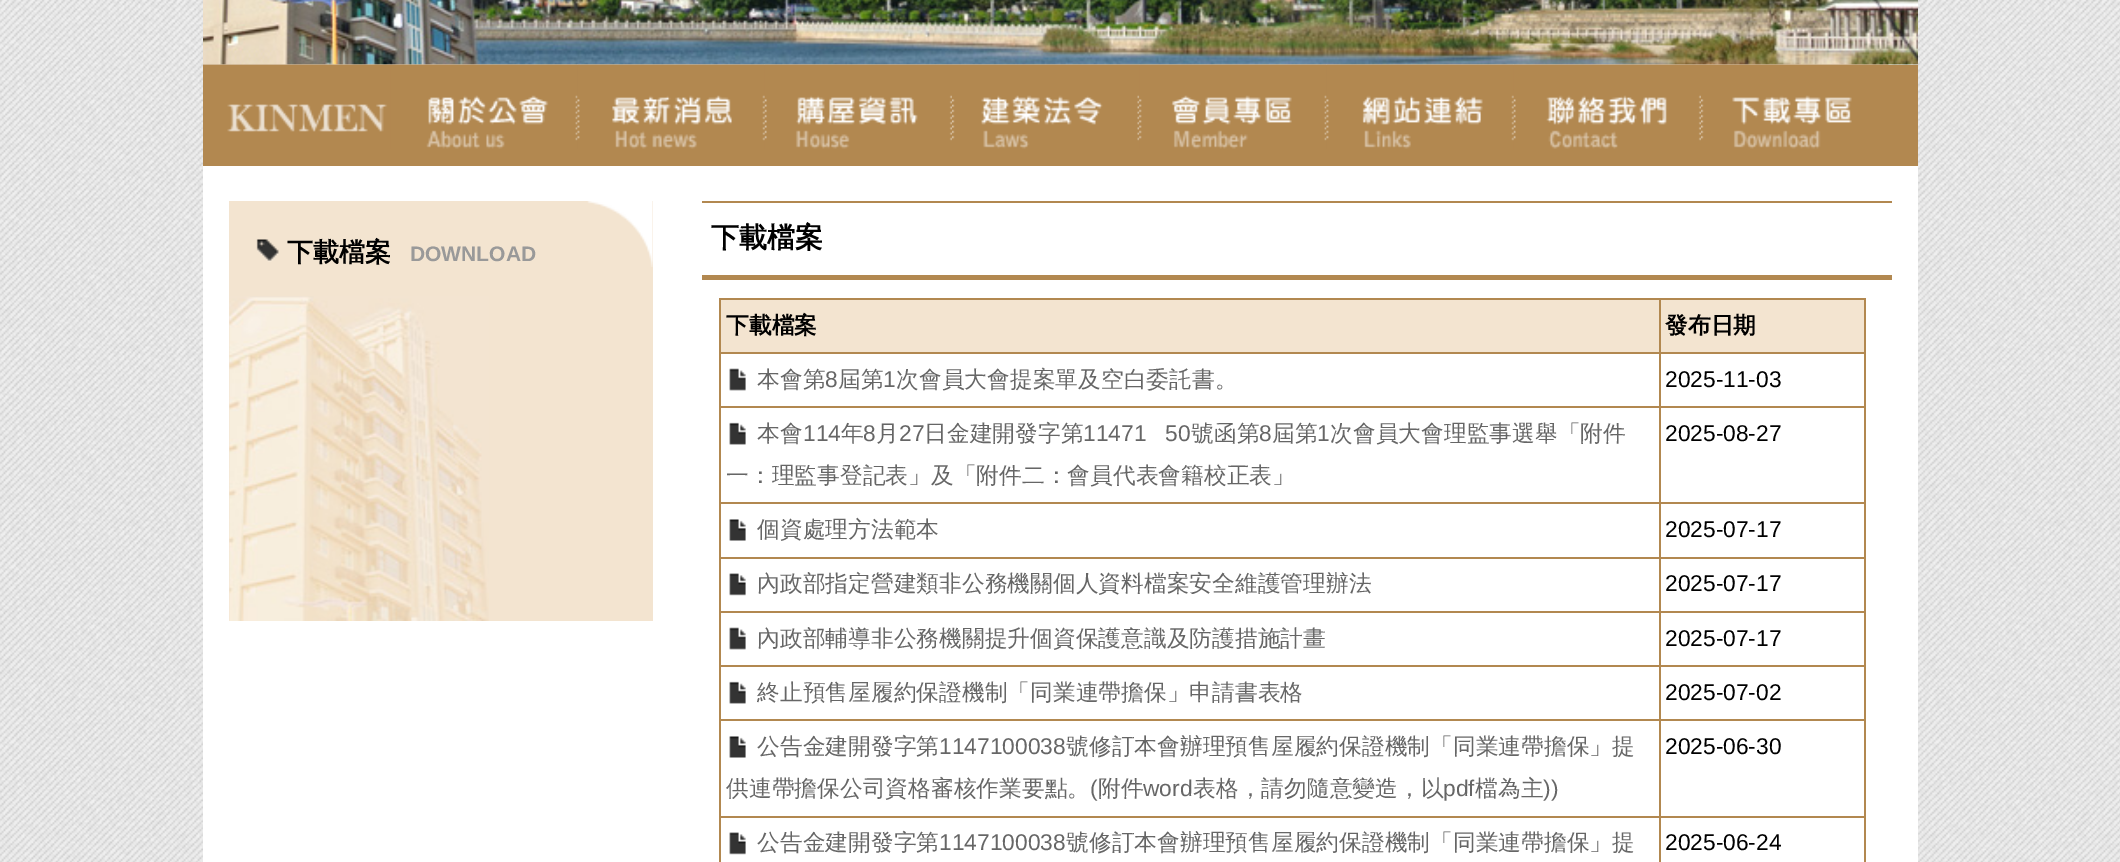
%!PS-Adobe-3.0
%%BoundingBox: 0 0 2120 862
%%LanguageLevel: 3
%%Pages: 1
%%EndComments
%%BeginProlog
/fn { [ exch dup neg 0 0 3 -1 roll 0 0 ] selectfont } def
/tx { moveto show } def
/bx { rectfill } def
/im { 5 dict begin { /h /w /y /x /name } { exch def } forall
  gsave x y translate w h scale
  w h 8 [w 0 0 h 0 0] name (r) file false 3 colorimage grestore end } def
%%EndProlog
%%BeginSetup
<< /PageSize [2120 862] >> setpagedevice
%%EndSetup
%%Page: 1 1
0 862 translate 1 -1 scale
4 setmiterlimit
1 setgray
0 0 2120 862 bx
(image0.raw) 0 0 2120 862 im
203 64 1715 798 bx
(image1.raw) 203 0 1715 65 im
0.698 0.533 0.314 setrgbcolor
203 65 1715 101 bx
(image2.raw) 203 64 188 68 im
(image3.raw) 390 64 188 85 im
(image4.raw) 577 64 188 85 im
(image5.raw) 764 64 188 85 im
(image6.raw) 952 64 188 85 im
(image7.raw) 1139 64 188 85 im
(image8.raw) 1326 64 188 85 im
(image9.raw) 1513 64 188 85 im
(image10.raw) 1701 64 188 85 im
0.953 0.894 0.816 setrgbcolor
229 201 424 420 bx
(image11.raw) 229 296 260 325 im
(image12.raw) 587 201 66 66 im
(image13.raw) 256 239 23 23 im
/WenQuanYiZenHei-Bold 26 fn
0 setgray
(下載檔案) 287 261 tx
/LiberationSans-Bold 21 fn
0.6 setgray
(DOWNLOAD) 410 261 tx
0.698 0.533 0.314 setrgbcolor
702 201 1190 2 bx
702 275 1190 5 bx
/WenQuanYiZenHei-Bold 28 fn
0 setgray
(下載檔案) 711 247 tx
0.953 0.894 0.816 setrgbcolor
721 300 938 52 bx
0.698 0.533 0.314 setrgbcolor
1659 298 207 2 bx
1659 352 207 2 bx
1659 406 207 2 bx
1659 502 207 2 bx
1659 557 207 2 bx
1659 611 207 2 bx
1659 665 207 2 bx
1659 719 207 2 bx
1659 816 207 2 bx
1659 816 2 46 bx
719 816 942 2 bx
1659 719 2 98 bx
719 719 942 2 bx
1659 665 2 56 bx
719 665 942 2 bx
1659 611 2 56 bx
719 611 942 2 bx
1659 557 2 56 bx
719 557 942 2 bx
1659 502 2 56 bx
719 502 942 2 bx
1659 406 2 98 bx
719 406 942 2 bx
1659 352 2 56 bx
719 352 942 2 bx
1659 298 2 56 bx
719 298 942 2 bx
719 816 2 46 bx
719 719 2 98 bx
719 665 2 56 bx
719 611 2 56 bx
719 557 2 56 bx
719 502 2 56 bx
719 406 2 98 bx
719 352 2 56 bx
719 298 2 56 bx
/WenQuanYiZenHei-Bold 22.75 fn
0 setgray
(下載檔案) 726 333 tx
0.953 0.894 0.816 setrgbcolor
1661 300 203 52 bx
0.698 0.533 0.314 setrgbcolor
1864 816 2 46 bx
1864 719 2 98 bx
1864 665 2 56 bx
1864 611 2 56 bx
1864 557 2 56 bx
1864 502 2 56 bx
1864 406 2 98 bx
1864 352 2 56 bx
1864 298 2 56 bx
0 setgray
(發布日期) 1665 333 tx
(image14.raw) 729 368 17 23 im
/WenQuanYiZenHei-Medium 22.75 fn
0.4 setgray
(本會第) 757 387 tx
/LiberationSans-Regular 22.75 fn
(8) 825 387 tx
/WenQuanYiZenHei-Medium 22.75 fn
(屆第) 838 387 tx
/LiberationSans-Regular 22.75 fn
(1) 883 387 tx
/WenQuanYiZenHei-Medium 22.75 fn
(次會員大會提案單及空白委託書。) 896 387 tx
/LiberationSans-Regular 22.75 fn
0 setgray
(2025-11-03) 1665 387 tx
(image15.raw) 729 422 17 23 im
/WenQuanYiZenHei-Medium 22.75 fn
0.4 setgray
(本會) 757 441 tx
/LiberationSans-Regular 22.75 fn
(114) 803 441 tx
/WenQuanYiZenHei-Medium 22.75 fn
(年) 841 441 tx
/LiberationSans-Regular 22.75 fn
(8) 863 441 tx
/WenQuanYiZenHei-Medium 22.75 fn
(月) 876 441 tx
/LiberationSans-Regular 22.75 fn
(27) 899 441 tx
/WenQuanYiZenHei-Medium 22.75 fn
(日金建開發字第) 924 441 tx
/LiberationSans-Regular 22.75 fn
(11471   50) 1083 441 tx
/WenQuanYiZenHei-Medium 22.75 fn
(號函第) 1191 441 tx
/LiberationSans-Regular 22.75 fn
(8) 1259 441 tx
/WenQuanYiZenHei-Medium 22.75 fn
(屆第) 1272 441 tx
/LiberationSans-Regular 22.75 fn
(1) 1317 441 tx
/WenQuanYiZenHei-Medium 22.75 fn
(次會員大會理監事選舉「附件) 1330 441 tx
(一：理監事登記表」及「附件二：會員代表會籍校正表」) 726 483 tx
/LiberationSans-Regular 22.75 fn
0 setgray
(2025-08-27) 1665 441 tx
(image16.raw) 729 519 17 22 im
/WenQuanYiZenHei-Medium 22.75 fn
0.4 setgray
(個資處理方法範本) 757 537 tx
/LiberationSans-Regular 22.75 fn
0 setgray
(2025-07-17) 1665 537 tx
(image17.raw) 729 573 17 23 im
/WenQuanYiZenHei-Medium 22.75 fn
0.4 setgray
(內政部指定營建類非公務機關個人資料檔案安全維護管理辦法) 757 591 tx
/LiberationSans-Regular 22.75 fn
0 setgray
(2025-07-17) 1665 591 tx
(image14.raw) 729 627 17 23 im
/WenQuanYiZenHei-Medium 22.75 fn
0.4 setgray
(內政部輔導非公務機關提升個資保護意識及防護措施計畫) 757 646 tx
/LiberationSans-Regular 22.75 fn
0 setgray
(2025-07-17) 1665 646 tx
(image15.raw) 729 681 17 23 im
/WenQuanYiZenHei-Medium 22.75 fn
0.4 setgray
(終止預售屋履約保證機制「同業連帶擔保」申請書表格) 757 700 tx
/LiberationSans-Regular 22.75 fn
0 setgray
(2025-07-02) 1665 700 tx
(image16.raw) 729 736 17 22 im
/WenQuanYiZenHei-Medium 22.75 fn
0.4 setgray
(公告金建開發字第) 757 754 tx
/LiberationSans-Regular 22.75 fn
(1147100038) 939 754 tx
/WenQuanYiZenHei-Medium 22.75 fn
(號修訂本會辦理預售屋履約保證機制「同業連帶擔保」提) 1066 754 tx
(供連帶擔保公司資格審核作業要點。) 726 796 tx
/LiberationSans-Regular 22.75 fn
(\() 1090 796 tx
/WenQuanYiZenHei-Medium 22.75 fn
(附件) 1098 796 tx
/LiberationSans-Regular 22.75 fn
(word) 1143 796 tx
/WenQuanYiZenHei-Medium 22.75 fn
(表格，請勿隨意變造，以) 1193 796 tx
/LiberationSans-Regular 22.75 fn
(pdf) 1443 796 tx
/WenQuanYiZenHei-Medium 22.75 fn
(檔為主) 1475 796 tx
/LiberationSans-Regular 22.75 fn
(\)\)) 1543 796 tx
0 setgray
(2025-06-30) 1665 754 tx
(image17.raw) 729 832 17 23 im
/WenQuanYiZenHei-Medium 22.75 fn
0.4 setgray
(公告金建開發字第) 757 850 tx
/LiberationSans-Regular 22.75 fn
(1147100038) 939 850 tx
/WenQuanYiZenHei-Medium 22.75 fn
(號修訂本會辦理預售屋履約保證機制「同業連帶擔保」提) 1066 850 tx
/LiberationSans-Regular 22.75 fn
0 setgray
(2025-06-24) 1665 850 tx
showpage
%%EOF
